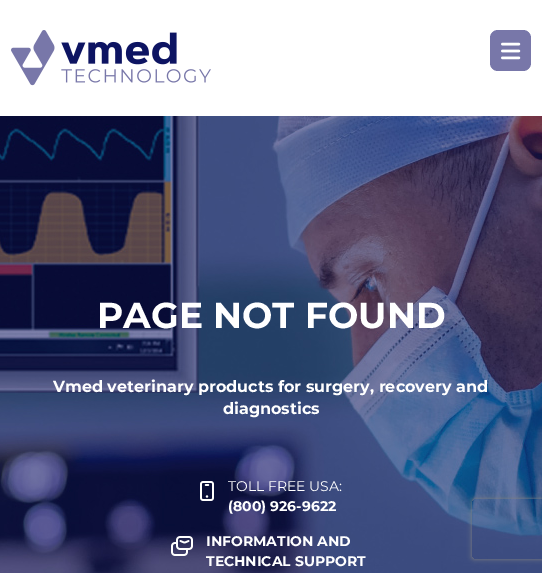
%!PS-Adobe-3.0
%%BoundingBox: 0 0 542 573
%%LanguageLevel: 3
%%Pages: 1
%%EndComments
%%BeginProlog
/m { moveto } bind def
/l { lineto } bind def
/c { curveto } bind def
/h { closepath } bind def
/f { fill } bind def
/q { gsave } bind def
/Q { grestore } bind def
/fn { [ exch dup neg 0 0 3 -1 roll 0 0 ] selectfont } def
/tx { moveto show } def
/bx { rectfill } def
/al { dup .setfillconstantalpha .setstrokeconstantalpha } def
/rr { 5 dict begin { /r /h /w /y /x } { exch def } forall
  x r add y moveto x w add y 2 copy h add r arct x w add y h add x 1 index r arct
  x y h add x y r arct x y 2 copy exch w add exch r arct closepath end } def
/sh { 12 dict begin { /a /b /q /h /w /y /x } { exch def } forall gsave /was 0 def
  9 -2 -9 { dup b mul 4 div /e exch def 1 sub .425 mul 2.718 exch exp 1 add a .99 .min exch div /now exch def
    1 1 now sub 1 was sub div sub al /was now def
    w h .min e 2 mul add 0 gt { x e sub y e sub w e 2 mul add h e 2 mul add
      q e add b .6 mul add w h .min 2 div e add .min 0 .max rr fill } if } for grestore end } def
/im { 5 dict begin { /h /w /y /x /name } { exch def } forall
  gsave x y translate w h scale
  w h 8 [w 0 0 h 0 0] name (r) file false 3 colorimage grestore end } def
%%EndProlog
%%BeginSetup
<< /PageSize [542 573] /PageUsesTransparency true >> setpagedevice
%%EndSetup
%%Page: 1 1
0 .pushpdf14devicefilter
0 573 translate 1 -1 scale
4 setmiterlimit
1 setgray
0 0 542 573 bx
(image0.raw) 11 30 200 56 im
0.471 0.467 0.663 setrgbcolor
490 30 41 41 8 rr f
(image1.raw) 501 42 20 18 im
(image2.raw) 0 116 542 457 im
/Montserrat-Bold 36 fn
1 setgray
(PAGE NOT FOUND) 97 328 tx
/Montserrat-Bold 16 fn
(Vmed veterinary products for surgery, recovery and) 53 392 tx
(diagnostics) 223 414 tx
(image3.raw) 200 481 14 20 im
/Montserrat-Regular 14 fn
(TOLL FREE USA:) 228 491 tx
/Montserrat-Bold 14 fn
(\(800\) 926-9622) 228 511 tx
(image4.raw) 171 536 22 20 im
(INFORMATION AND) 206 546 tx
(TECHNICAL SUPPORT) 206 566 tx
q
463 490 m 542 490 l 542 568 l 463 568 l h 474 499 m 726 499 l 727 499 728 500 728 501 c 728 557 l 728 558 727 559 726 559 c 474 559 l 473 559 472 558 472 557 c 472 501 l 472 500 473 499 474 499 c h eoclip newpath
0.502 setgray
472 499 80 60 2 2.5 1 sh
Q
.poppdf14devicefilter showpage
%%EOF
